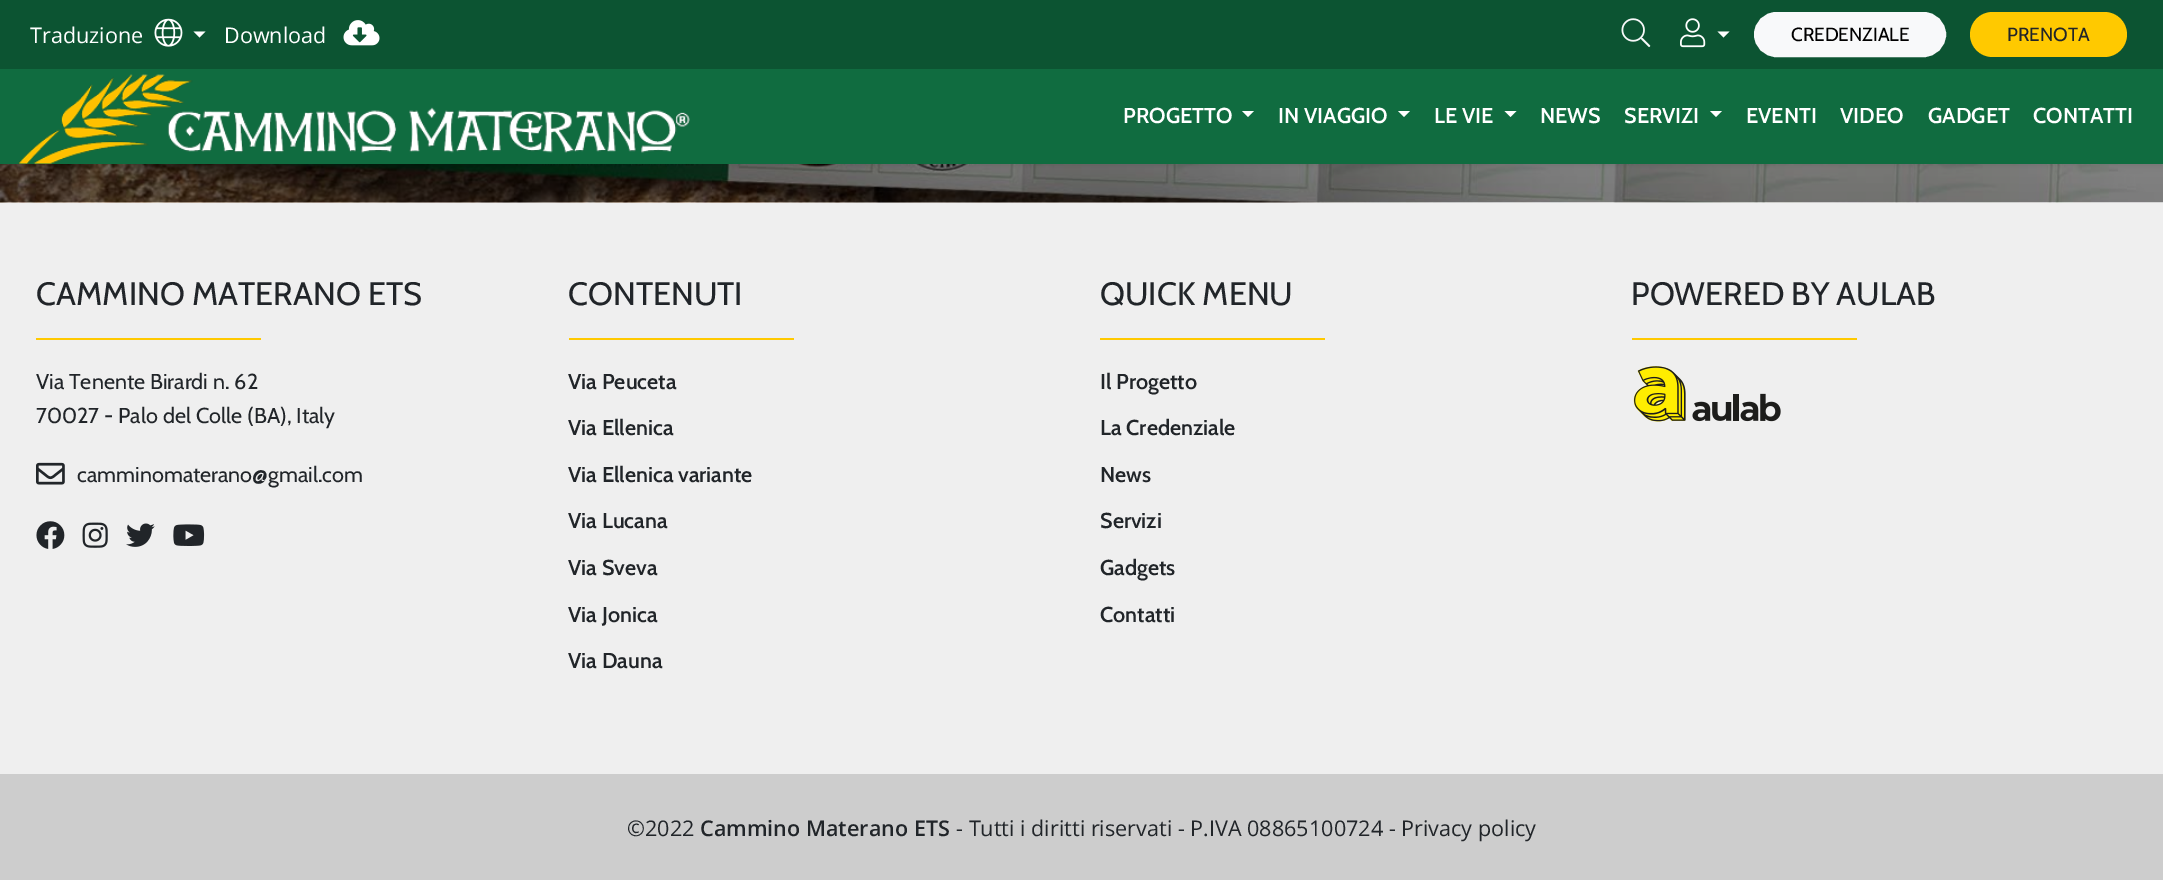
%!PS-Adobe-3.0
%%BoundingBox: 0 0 2163 880
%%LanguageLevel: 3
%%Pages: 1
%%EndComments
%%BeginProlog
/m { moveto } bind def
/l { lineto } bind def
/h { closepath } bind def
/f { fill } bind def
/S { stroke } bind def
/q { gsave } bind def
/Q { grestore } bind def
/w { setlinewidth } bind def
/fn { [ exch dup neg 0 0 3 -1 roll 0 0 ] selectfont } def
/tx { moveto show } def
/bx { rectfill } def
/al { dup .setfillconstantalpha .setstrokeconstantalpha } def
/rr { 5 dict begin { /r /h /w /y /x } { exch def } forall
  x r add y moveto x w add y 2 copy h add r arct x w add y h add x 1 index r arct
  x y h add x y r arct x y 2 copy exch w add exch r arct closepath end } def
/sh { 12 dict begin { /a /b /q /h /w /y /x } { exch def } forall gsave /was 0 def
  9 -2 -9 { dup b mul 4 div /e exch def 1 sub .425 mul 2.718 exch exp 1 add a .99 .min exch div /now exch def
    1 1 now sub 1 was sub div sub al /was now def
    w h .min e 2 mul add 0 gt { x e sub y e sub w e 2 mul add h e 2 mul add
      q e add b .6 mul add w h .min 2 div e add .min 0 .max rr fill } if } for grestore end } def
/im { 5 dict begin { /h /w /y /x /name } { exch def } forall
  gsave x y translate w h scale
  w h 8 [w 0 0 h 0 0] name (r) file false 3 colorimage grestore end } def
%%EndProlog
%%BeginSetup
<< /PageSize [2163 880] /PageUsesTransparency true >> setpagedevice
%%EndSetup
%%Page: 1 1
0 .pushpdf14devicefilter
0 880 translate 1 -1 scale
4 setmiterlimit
1 setgray
0 0 2163 880 bx
0.047 0.329 0.196 setrgbcolor
0 0 2163 69 bx
/OpenSans-Regular 21.6 fn
1 setgray
(Traduzione) 30 43 tx
(image0.raw) 154 18 29 29 im
193.5 31.5 m 205.5 31.5 l 199.5 37.5 l h f
(Download) 224 43 tx
(image1.raw) 343 20 37 26 im
(image2.raw) 1621 18 30 30 im
(image3.raw) 1680 18 26 30 im
1717.5 31.5 m 1729.5 31.5 l 1723.5 37.5 l h f
0.973 0.976 0.98 setrgbcolor
1755 13 190 43 21.5 rr q f Q
2 w
S
/Cabin-Regular 19 fn
0 setgray
(CREDENZIALE) 1791 41 tx
1 0.788 0 setrgbcolor
1970 12 157 45 22.5 rr f
0.129 0.145 0.161 setrgbcolor
(PRENOTA) 2007 41 tx
(image5.raw) 0 164 2163 39 im
0 setgray
0 72 2163 95 0 3 0.07 sh
0.063 0.424 0.251 setrgbcolor
0 69 2163 95 bx
(image4.raw) 18 74 672 90 im
/Cabin-SemiBold 21.6 fn
1 setgray
(PROGETTO) 1123 123 tx
1242 111 m 1254 111 l 1248 117 l h f
(IN VIAGGIO) 1278 123 tx
1398 111 m 1410 111 l 1404 117 l h f
(LE VIE) 1434 123 tx
1504.5 111 m 1516.5 111 l 1510.5 117 l h f
(NEWS) 1540 123 tx
(SERVIZI) 1624 123 tx
1710 111 m 1722 111 l 1716 117 l h f
(EVENTI) 1746 123 tx
(VIDEO) 1840 123 tx
(GADGET) 1928 123 tx
(CONTATTI) 2033 123 tx
0.937 setgray
0 203 2163 571 bx
/Cabin-Regular 32.4 fn
0.129 0.145 0.161 setrgbcolor
(CAMMINO MATERANO ETS) 36 305 tx
1 0.788 0 setrgbcolor
36 338 225 2 bx
/Cabin-Regular 21.6 fn
0.129 0.145 0.161 setrgbcolor
(Via Tenente Birardi n. 62) 36 389 tx
(70027 - Palo del Colle \(BA\), Italy) 36 423 tx
(image6.raw) 36 462 29 23 im
(camminomaterano@gmail.com) 77 482 tx
(image7.raw) 36 521 29 28 im
(image8.raw) 82 522 26 26 im
(image9.raw) 126 523 29 24 im
(image10.raw) 173 524 32 22 im
/Cabin-Regular 32.4 fn
(CONTENUTI) 568 305 tx
1 0.788 0 setrgbcolor
569 338 225 2 bx
/Cabin-SemiBold 21.6 fn
0.129 0.145 0.161 setrgbcolor
(Via Peuceta) 568 389 tx
(Via Ellenica) 568 435 tx
(Via Ellenica variante) 568 482 tx
(Via Lucana) 568 528 tx
(Via Sveva) 568 575 tx
(Via Jonica) 568 622 tx
(Via Dauna) 568 668 tx
/Cabin-Regular 32.4 fn
(QUICK MENU) 1100 305 tx
1 0.788 0 setrgbcolor
1100 338 225 2 bx
/Cabin-SemiBold 21.6 fn
0.129 0.145 0.161 setrgbcolor
(Il Progetto) 1100 389 tx
(La Credenziale) 1100 435 tx
(News) 1100 482 tx
(Servizi) 1100 528 tx
(Gadgets) 1100 575 tx
(Contatti) 1100 622 tx
/Cabin-Regular 32.4 fn
(POWERED BY AULAB) 1631 305 tx
1 0.788 0 setrgbcolor
1632 338 225 2 bx
(image11.raw) 1633 366 148 56 im
0.804 setgray
0 774 2163 106 bx
/OpenSans-Regular 21.6 fn
0.129 0.145 0.161 setrgbcolor
(©2022) 627 836 tx
/OpenSans-SemiBold 21.6 fn
(Cammino Materano ETS) 700 836 tx
/OpenSans-Regular 21.6 fn
(- Tutti i diritti riservati - P.IVA 08865100724 - Privacy policy) 956 836 tx
.poppdf14devicefilter showpage
%%EOF
